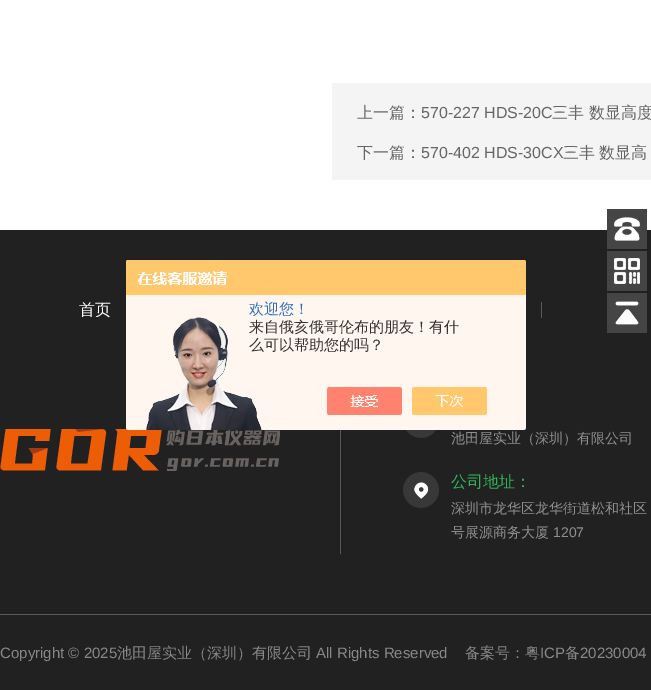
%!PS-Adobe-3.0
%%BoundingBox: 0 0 651 690
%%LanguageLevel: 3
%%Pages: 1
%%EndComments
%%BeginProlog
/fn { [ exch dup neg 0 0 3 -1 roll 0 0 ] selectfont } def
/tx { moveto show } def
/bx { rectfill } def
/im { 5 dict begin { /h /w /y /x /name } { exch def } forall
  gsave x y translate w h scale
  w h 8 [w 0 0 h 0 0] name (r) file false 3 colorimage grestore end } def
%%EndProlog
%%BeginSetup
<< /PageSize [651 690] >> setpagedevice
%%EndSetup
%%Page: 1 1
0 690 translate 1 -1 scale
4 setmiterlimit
1 setgray
0 0 651 690 bx
0.957 setgray
332 83 319 97 bx
/WenQuanYiZenHei-Medium 16 fn
0.4 setgray
(上一篇：) 357 118 tx
/LiberationSans-Regular 16 fn
(570-227 HDS-20C) 421 118 tx
/WenQuanYiZenHei-Medium 16 fn
(三丰 数显高度) 552 118 tx
(下一篇：) 357 158 tx
/LiberationSans-Regular 16 fn
(570-402 HDS-30CX) 421 158 tx
/WenQuanYiZenHei-Medium 16 fn
(三丰) 563 158 tx
(数显高) 599 158 tx
0.129 setgray
0 230 651 460 bx
0.271 setgray
607 209 40 40 bx
(image0.raw) 614 217 26 24 im
607 251 40 40 bx
(image1.raw) 614 258 26 26 im
607 293 40 40 bx
(image2.raw) 615 301 24 24 im
1 setgray
(首页) 79 315 tx
0.349 setgray
541 302 1 16 bx
(image3.raw) 0 429 280 42 im
340 430 1 124 bx
(image4.raw) 406 430 30 8 im
/WenQuanYiZenHei-Medium 14 fn
0.565 setgray
(池田屋实业（深圳）有限公司) 451 443 tx
(image5.raw) 403 472 36 36 im
/WenQuanYiZenHei-Medium 16 fn
0.196 0.702 0.341 setrgbcolor
(公司地址：) 451 487 tx
/WenQuanYiZenHei-Medium 14 fn
0.565 setgray
(深圳市龙华区龙华街道松和社区) 451 513 tx
(号展源商务大厦) 451 537 tx
/LiberationSans-Regular 14 fn
(1207) 553 537 tx
0.349 setgray
0 614 651 1 bx
/LiberationSans-Regular 15 fn
0.533 setgray
(Copyright © 2025) 0 658 tx
/WenQuanYiZenHei-Medium 15 fn
(池田屋实业（深圳）有限公司) 117 658 tx
/LiberationSans-Regular 15 fn
(All Rights Reserved) 316 658 tx
/WenQuanYiZenHei-Medium 15 fn
(备案号：粤) 465 658 tx
/LiberationSans-Regular 15 fn
(ICP) 540 658 tx
/WenQuanYiZenHei-Medium 15 fn
(备) 565 658 tx
/LiberationSans-Regular 15 fn
(20230004) 580 658 tx
(image6.raw) 126 260 400 170 im
/WenQuanYiZenHei-Medium 15 fn
0.18 0.431 0.776 setrgbcolor
(欢迎您！) 249 314 tx
0.2 setgray
(来自俄亥俄哥伦布的朋友！有什) 249 332 tx
(么可以帮助您的吗？) 249 350 tx
showpage
%%EOF
